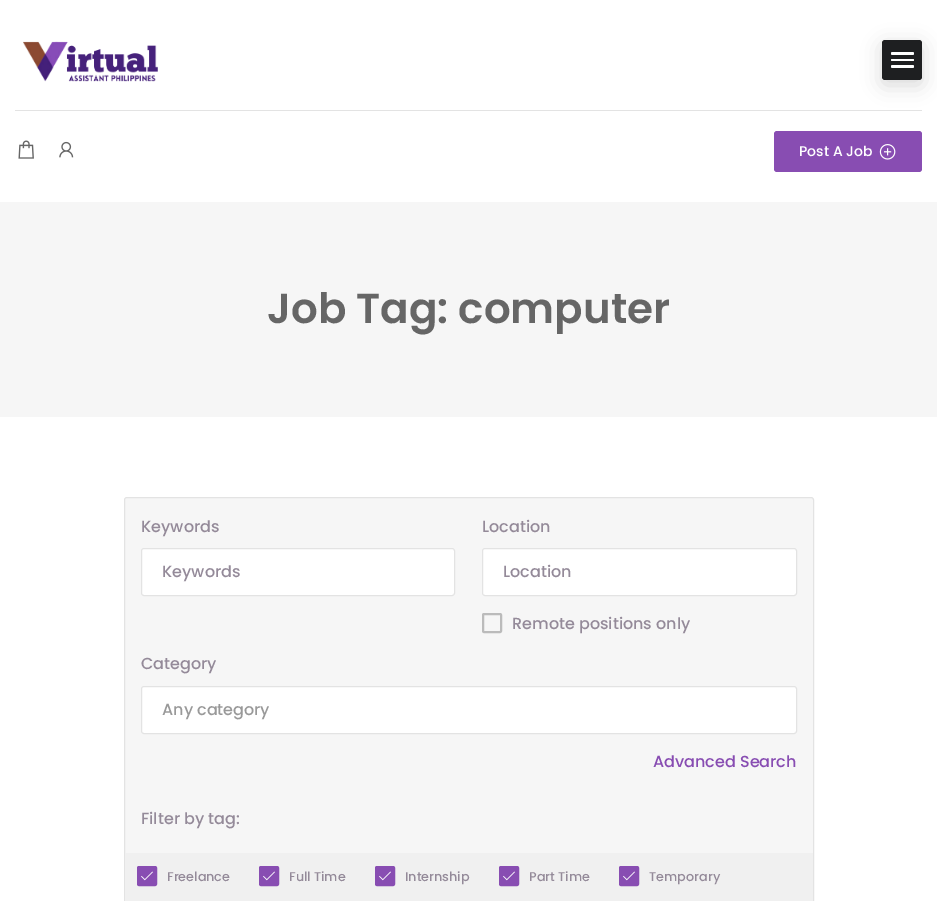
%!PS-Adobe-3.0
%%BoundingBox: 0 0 937 901
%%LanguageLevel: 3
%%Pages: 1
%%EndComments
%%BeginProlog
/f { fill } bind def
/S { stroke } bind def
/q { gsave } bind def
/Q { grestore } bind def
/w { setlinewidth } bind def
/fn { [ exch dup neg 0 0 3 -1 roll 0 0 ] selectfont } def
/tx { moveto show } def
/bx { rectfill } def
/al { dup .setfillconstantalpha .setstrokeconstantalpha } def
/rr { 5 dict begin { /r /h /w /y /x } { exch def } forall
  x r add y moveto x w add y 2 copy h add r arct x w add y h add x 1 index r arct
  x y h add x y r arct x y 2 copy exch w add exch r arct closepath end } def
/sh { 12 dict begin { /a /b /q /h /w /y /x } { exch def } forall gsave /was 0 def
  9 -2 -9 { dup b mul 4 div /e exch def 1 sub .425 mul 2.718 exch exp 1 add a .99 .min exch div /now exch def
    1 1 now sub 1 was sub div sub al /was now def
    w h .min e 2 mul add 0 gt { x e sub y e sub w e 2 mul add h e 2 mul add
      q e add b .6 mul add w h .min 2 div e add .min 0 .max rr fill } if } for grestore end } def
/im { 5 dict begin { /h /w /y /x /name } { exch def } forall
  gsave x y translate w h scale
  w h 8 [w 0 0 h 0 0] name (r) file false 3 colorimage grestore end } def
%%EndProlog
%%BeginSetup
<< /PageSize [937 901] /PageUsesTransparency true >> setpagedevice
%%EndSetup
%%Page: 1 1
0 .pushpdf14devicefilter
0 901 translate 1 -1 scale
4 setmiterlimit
1 setgray
0 0 937 901 bx
(image0.raw) 23 41 135 41 im
0.89 setgray
15 110 907 1 bx
0 setgray
882 45 40 40 3 10 0.15 sh
0.118 0.122 0.129 setrgbcolor
882 40 40 40 3 rr f
1 setgray
891 65 23 3 1.5 rr f
891 52 23 3 1.5 rr f
891 59 23 2 1 rr f
(image1.raw) 18 140 16 19 im
(image2.raw) 59 141 15 17 im
0.533 0.302 0.698 setrgbcolor
774 131 148 41 3 rr f
/Poppins-Medium 14 fn
1 setgray
(Post A Job) 799 156 tx
(image3.raw) 879 144 17 16 im
0.965 setgray
0 202 937 215 bx
/Poppins-SemiBold 42 fn
0.4 setgray
(Job Tag: computer) 267 323 tx
0.965 setgray
124.5 497.5 689 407 2.5 rr q f Q
0.89 setgray
S
/Poppins-Medium 16 fn
0.58 0.541 0.6 setrgbcolor
(Keywords) 141 532 tx
1 setgray
141.5 548.5 313 47 2.5 rr q f Q
0.89 setgray
S
0.58 0.541 0.6 setrgbcolor
(Keywords) 162 577 tx
(Location) 482 532 tx
1 setgray
482.5 548.5 314 47 2.5 rr q f Q
0.89 setgray
S
0.58 0.541 0.6 setrgbcolor
(Location) 503 577 tx
0.733 setgray
2 w
483 614 18 18 1 rr S
0.58 0.541 0.6 setrgbcolor
(Remote positions only) 512 629 tx
(Category) 141 669 tx
1 setgray
141.5 686.5 655 47 2.5 rr q f Q
0.89 setgray
1 w
S
0.6 setgray
(Any category) 162 715 tx
0.533 0.302 0.698 setrgbcolor
(Advanced Search) 653 767 tx
0.58 0.541 0.6 setrgbcolor
(Filter by tag:) 141 824 tx
0.941 setgray
125 853 688 48 bx
0.533 0.302 0.698 setrgbcolor
138 867 18 18 1 rr q f Q
2 w
S
(image4.raw) 141 871 12 10 im
/Poppins-Medium 12.75 fn
0.58 0.541 0.6 setrgbcolor
(Freelance) 167 881 tx
0.533 0.302 0.698 setrgbcolor
260 867 18 18 1 rr q f Q
S
(image4.raw) 263 871 12 10 im
0.58 0.541 0.6 setrgbcolor
(Full Time) 289 881 tx
0.533 0.302 0.698 setrgbcolor
376 867 18 18 1 rr q f Q
S
(image4.raw) 379 871 12 10 im
0.58 0.541 0.6 setrgbcolor
(Internship) 405 881 tx
0.533 0.302 0.698 setrgbcolor
500 867 18 18 1 rr q f Q
S
(image4.raw) 503 871 12 10 im
0.58 0.541 0.6 setrgbcolor
(Part Time) 529 881 tx
0.533 0.302 0.698 setrgbcolor
620 867 18 18 1 rr q f Q
S
(image4.raw) 623 871 12 10 im
0.58 0.541 0.6 setrgbcolor
(Temporary) 649 881 tx
.poppdf14devicefilter showpage
%%EOF
